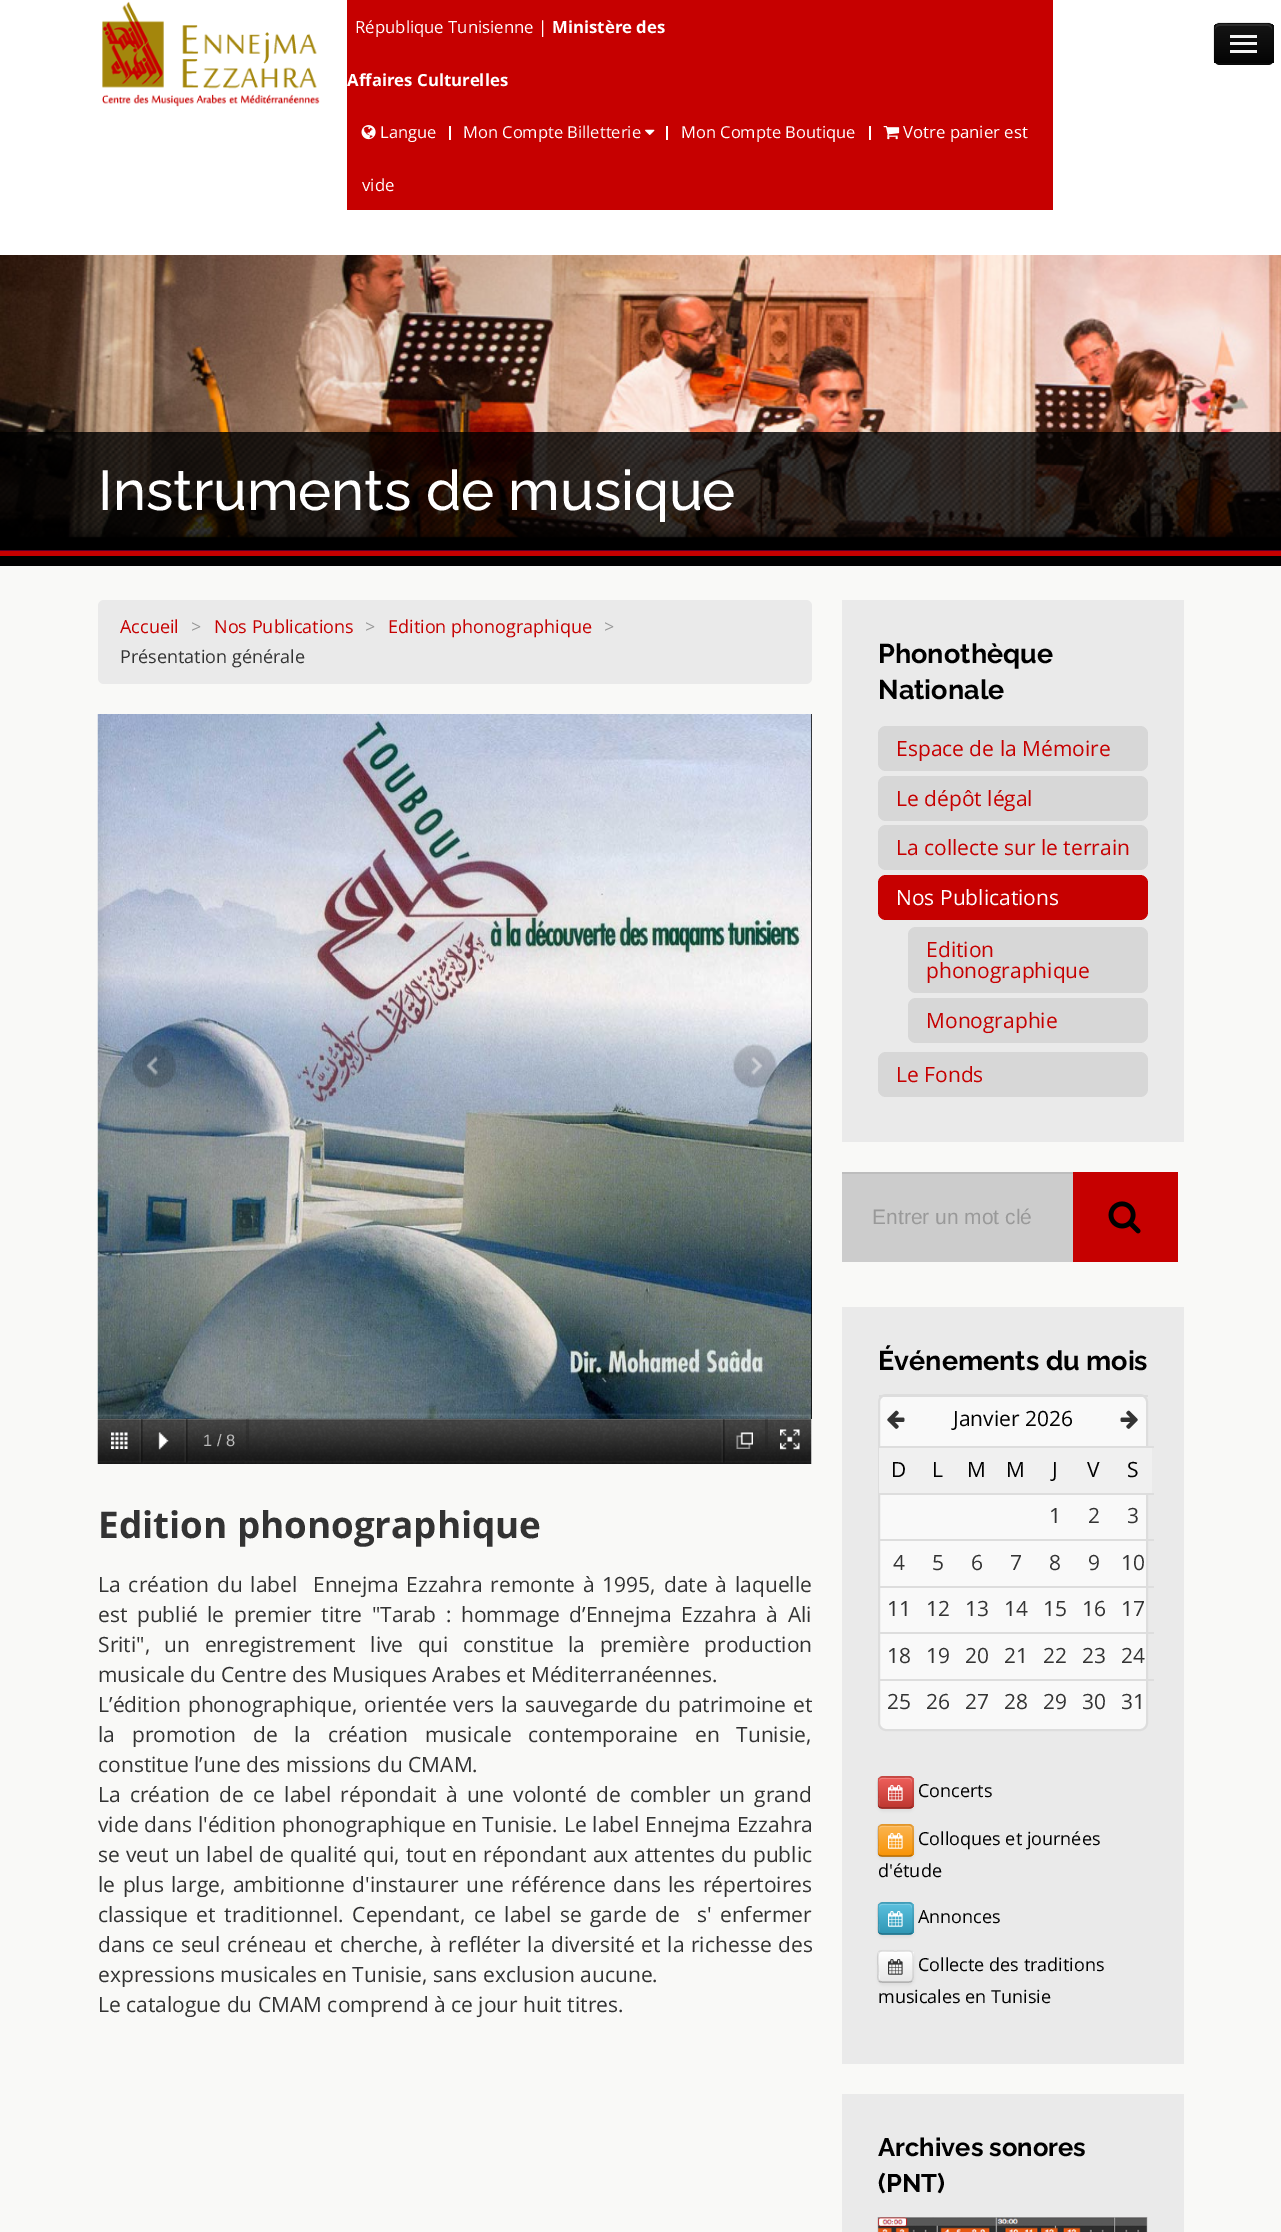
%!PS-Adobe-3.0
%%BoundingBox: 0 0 1281 2232
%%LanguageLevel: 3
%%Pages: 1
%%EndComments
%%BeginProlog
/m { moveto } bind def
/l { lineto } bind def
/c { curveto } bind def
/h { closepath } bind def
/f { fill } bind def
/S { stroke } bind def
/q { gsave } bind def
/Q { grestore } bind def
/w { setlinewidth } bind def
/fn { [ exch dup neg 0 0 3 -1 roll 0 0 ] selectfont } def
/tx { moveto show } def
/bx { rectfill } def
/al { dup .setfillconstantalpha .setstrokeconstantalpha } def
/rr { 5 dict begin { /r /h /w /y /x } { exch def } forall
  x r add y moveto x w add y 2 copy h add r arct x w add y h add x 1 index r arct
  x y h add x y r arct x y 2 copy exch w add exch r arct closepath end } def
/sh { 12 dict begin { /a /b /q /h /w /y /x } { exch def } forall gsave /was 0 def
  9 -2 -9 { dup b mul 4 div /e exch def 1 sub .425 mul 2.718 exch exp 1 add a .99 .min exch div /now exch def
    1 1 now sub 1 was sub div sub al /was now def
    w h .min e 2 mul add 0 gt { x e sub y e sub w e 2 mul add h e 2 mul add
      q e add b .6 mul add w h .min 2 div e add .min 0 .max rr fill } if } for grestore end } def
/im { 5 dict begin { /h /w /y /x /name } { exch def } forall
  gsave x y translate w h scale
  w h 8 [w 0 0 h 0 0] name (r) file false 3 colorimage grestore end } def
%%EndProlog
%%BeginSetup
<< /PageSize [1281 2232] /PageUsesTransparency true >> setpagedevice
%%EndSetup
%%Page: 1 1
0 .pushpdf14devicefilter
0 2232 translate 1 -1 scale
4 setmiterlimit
0.976 0.976 0.969 setrgbcolor
0 0 1281 2232 bx
1 setgray
0 0 1281 255 bx
(image0.raw) 102 1 218 106 im
0.776 0 0 setrgbcolor
347 0 706 210 bx
/OpenSans-Regular 16.75 fn
1 setgray
(République Tunisienne |) 355 33 tx
/OpenSans-Bold 16.75 fn
(Ministère des) 552 33 tx
(Affaires Culturelles) 347 86 tx
(image1.raw) 883 126 17 14 im
/OpenSans-Regular 16.75 fn
(Votre panier est) 903 138 tx
(vide) 362 191 tx
(image2.raw) 361 125 15 15 im
/OpenSans-Regular 16.5 fn
(Langue) 380 138 tx
449 126 2 14 bx
(Mon Compte Billetterie) 463 138 tx
(image3.raw) 645 129 10 6 im
666 126 2 14 bx
(Mon Compte Boutique) 681 138 tx
869 126 2 14 bx
0.055 setgray
1214 23 60 42 6 rr f
q
1214 23 60 42 6 rr clip newpath
q 1214 24 m 1274 24 l 1274 63 l 1214 63 l h clip newpath
<< /ShadingType 2 /ColorSpace /DeviceRGB /Coords [1244 24 1244 63] /Extend [true true] /Function << /FunctionType 2 /Domain [0 1] /C0 [0.082 0.082 0.082] /C1 [0.016 0.016 0.016] /N 1 >> >> shfill Q
Q
0.173 setgray
1220 26 m 1268 26 l 1270 26 1272 28 1272 30 c 1272 22 1265 24 1259 24 c 1228 24 l 1222 24 1215 22 1215 30 c 1215 28 1217 26 1220 26 c h f
0.25 al
0 setgray
1.5 w
1271 62 m 1270 63 1269 64 1267.5 64 c 1219.5 64 l 1218 64 1217 63 1216 62 c S
0.1 al
1216 62 m 1215 61 1214 60 1214 58.5 c 1214 28.5 l 1214 27 1215 26 1216 25 c 1217 24 1218 23 1219.5 23 c 1267.5 23 l 1269 23 1270 24 1271 25 c 1272 26 1273 27 1273 28.5 c 1273 58.5 l 1273 60 1272 61 1271 62 c S
1 al
0.961 setgray
1230 35 27 3 bx
1230 42 27 3 bx
1230 50 27 3 bx
(image4.raw) 0 255 1281 283 im
0 setgray
0 556 1281 10 bx
(image5.raw) 0 432 1281 119 im
0.776 0 0 setrgbcolor
0 551 1281 5 bx
/Raleway-Medium 56 fn
1 setgray
(Instruments de musique) 98 510 tx
0.918 setgray
98 600 714 84 6 rr f
/OpenSans-Regular 18 fn
0.776 0 0 setrgbcolor
(Accueil) 120 633 tx
0.6 setgray
(>) 191 633 tx
0.776 0 0 setrgbcolor
(Nos Publications) 214 633 tx
0.6 setgray
(>) 365 633 tx
0.776 0 0 setrgbcolor
(Edition phonographique) 388 633 tx
0.6 setgray
(>) 604 633 tx
0.2 setgray
(Présentation générale) 120 663 tx
0 setgray
811 714 1 705 bx
(image6.raw) 97 714 715 705 im
(image7.raw) 132 1044 44 44 im
(image8.raw) 733 1044 44 44 im
(image9.raw) 97 1418 715 46 im
(image10.raw) 111 1432 17 17 im
(image11.raw) 139 1419 4 44 im
(image12.raw) 158 1432 11 18 im
(image13.raw) 184 1419 4 44 im
0.26 al
0.106 setgray
246 1419 3 30 bx
/LiberationSans-Regular 16.5 fn
1 al
0.733 setgray
(1 / 8) 203 1446 tx
(image14.raw) 721 1419 4 44 im
(image15.raw) 736 1432 17 17 im
0.26 al
0.106 setgray
765 1419 3 30 bx
1 al
(image16.raw) 780 1429 20 21 im
/OpenSans-Bold 36.75 fn
0.2 setgray
(Edition phonographique) 98 1538 tx
/OpenSans-Regular 21 fn
98 1592 m 2.4 0 32 (La création du label  Ennejma Ezzahra remonte à 1995, date à laquelle) widthshow
98 1622 m 4 0 32 (est publié le premier titre "Tarab : hommage d’Ennejma Ezzahra à Ali) widthshow
98 1652 m 9 0 32 (Sriti", un enregistrement live qui constitue la première production) widthshow
(musicale du Centre des Musiques Arabes et Méditerranéennes.) 98 1682 tx
98 1712 m 1.5 0 32 (L’édition phonographique, orientée vers la sauvegarde du patrimoine et) widthshow
98 1742 m 11.25 0 32 (la promotion de la création musicale contemporaine en Tunisie,) widthshow
(constitue l’une des missions du CMAM.) 98 1772 tx
98 1802 m 3.75 0 32 (La création de ce label répondait à une volonté de combler un grand) widthshow
98 1832 m 0.5 0 32 (vide dans l'édition phonographique en Tunisie. Le label Ennejma Ezzahra) widthshow
98 1862 m 0.6 0 32 (se veut un label de qualité qui, tout en répondant aux attentes du public) widthshow
98 1892 m 2 0 32 (le plus large, ambitionne d'instaurer une référence dans les répertoires) widthshow
98 1922 m 3.1 0 32 (classique et traditionnel. Cependant, ce label se garde de  s' enfermer) widthshow
98 1952 m 1.25 0 32 (dans ce seul créneau et cherche, à refléter la diversité et la richesse des) widthshow
(expressions musicales en Tunisie, sans exclusion aucune.) 98 1982 tx
(Le catalogue du CMAM comprend à ce jour huit titres.) 98 2012 tx
0.918 setgray
842 600 342 542 bx
/Raleway-Bold 27 fn
0 setgray
(Phonothèque) 878 663 tx
(Nationale) 878 699 tx
0.843 setgray
878 726 270 45 8 rr f
/OpenSans-Regular 21 fn
0.776 0 0 setrgbcolor
(Espace de la Mémoire) 896 756 tx
0.843 setgray
878 776 270 45 8 rr f
0.776 0 0 setrgbcolor
(Le dépôt légal) 896 806 tx
0.843 setgray
878 825 270 45 8 rr f
0.776 0 0 setrgbcolor
(La collecte sur le terrain) 896 855 tx
878 875 270 45 8 rr f
1 setgray
(Nos Publications) 896 905 tx
0.843 setgray
908 927 240 66 8 rr f
0.776 0 0 setrgbcolor
(Edition) 926 957 tx
(phonographique) 926 978 tx
0.843 setgray
908 998 240 45 8 rr f
0.776 0 0 setrgbcolor
(Monographie) 926 1028 tx
0.843 setgray
878 1052 270 45 8 rr f
0.776 0 0 setrgbcolor
(Le Fonds) 896 1082 tx
0.8 setgray
842 1174 231 88 bx
0.741 setgray
842 1172 231 2 bx
/LiberationSans-Regular 21 fn
0.6 setgray
(Entrer un mot clé) 872 1224 tx
0.776 0 0 setrgbcolor
1073 1172 105 90 bx
(image17.raw) 1108 1201 33 33 im
0.918 setgray
842 1307 342 757 bx
/Raleway-Bold 27 fn
0 setgray
(Événements du mois) 878 1370 tx
0.976 setgray
879 1395 268 335 7 rr q f Q
0.867 setgray
2 w
S
1113 1395 35 2 bx
912 1396 203 1 bx
879 1395 35 2 bx
(image18.raw) 887 1410 18 19 im
/OpenSans-Regular 21 fn
0 setgray
(Janvier 2026) 953 1426 tx
(image19.raw) 1120 1410 18 19 im
0.941 setgray
879 1448 273 45 bx
0 setgray
(D) 891 1477 tx
(L) 932 1477 tx
(M) 967 1477 tx
(M) 1006 1477 tx
(J) 1052 1477 tx
(V) 1087 1477 tx
0.867 setgray
879 1446 275 2 bx
0 setgray
(S) 1127 1477 tx
0.2 setgray
(1) 1049 1523 tx
(2) 1088 1523 tx
0.867 setgray
879 1493 275 2 bx
0.2 setgray
(3) 1127 1523 tx
(4) 893 1570 tx
(5) 932 1570 tx
(6) 971 1570 tx
(7) 1010 1570 tx
(8) 1049 1570 tx
(9) 1088 1570 tx
0.867 setgray
879 1539 275 2 bx
0.2 setgray
(10) 1121 1570 tx
(11) 887 1616 tx
(12) 926 1616 tx
(13) 965 1616 tx
(14) 1004 1616 tx
(15) 1043 1616 tx
(16) 1082 1616 tx
0.867 setgray
879 1586 275 2 bx
0.2 setgray
(17) 1121 1616 tx
(18) 887 1663 tx
(19) 926 1663 tx
(20) 965 1663 tx
(21) 1004 1663 tx
(22) 1043 1663 tx
(23) 1082 1663 tx
0.867 setgray
879 1632 275 2 bx
0.2 setgray
(24) 1121 1663 tx
(25) 887 1709 tx
(26) 926 1709 tx
(27) 965 1709 tx
(28) 1004 1709 tx
(29) 1043 1709 tx
(30) 1082 1709 tx
0.867 setgray
879 1679 275 2 bx
0.2 setgray
(31) 1121 1709 tx
0 setgray
878 1778 36 33 5 1.5 0.05 sh
0.855 0.31 0.286 setrgbcolor
878 1776 36 33 5 rr f
q
878 1776 36 33 5 rr clip newpath
q 878 1778 m 914 1778 l 914 1808 l 878 1808 l h clip newpath
<< /ShadingType 2 /ColorSpace /DeviceRGB /Coords [896 1778 896 1808] /Extend [true true] /Function << /FunctionType 2 /Domain [0 1] /C0 [0.933 0.373 0.357] /C1 [0.741 0.212 0.184] /N 1 >> >> shfill Q
Q
0.2 al
1 setgray
882 1779 m 910 1779 l 911 1780 911.5 1781 912 1782.5 c 912 1777 909.5 1778 904.5 1778 c 886.5 1778 l 883.5 1778 879 1777 879 1781.5 c 879.5 1780 880.5 1779 882 1779 c h 912 1804.5 m 912 1806 l h 879.5 1806.5 m 879 1798 l 879 1800 878.5 1804.5 879.5 1806.5 c h eofill
0.25 al
0 setgray
1.5 w
911.5 1807 m 911 1808 910 1808 909 1808 c 882 1808 l 881 1808 880 1808 879.5 1807 c S
0.1 al
879.5 1807 m 877.5 1805.5 878 1802.5 878 1800.5 c 878 1792.5 l 878 1773.5 876 1777 895.5 1777 c 915 1777 913 1773.5 913 1792.5 c 913 1800.5 l 913 1802.5 913.5 1805.5 911.5 1807 c S
1 al
(image20.raw) 888 1785 15 16 im
/OpenSans-Regular 18 fn
(Concerts) 918 1797 tx
878 1826 36 33 5 1.5 0.05 sh
0.98 0.655 0.196 setrgbcolor
878 1824 36 33 5 rr f
q
878 1824 36 33 5 rr clip newpath
q 878 1826 m 914 1826 l 914 1856 l 878 1856 l h clip newpath
<< /ShadingType 2 /ColorSpace /DeviceRGB /Coords [896 1826 896 1856] /Extend [true true] /Function << /FunctionType 2 /Domain [0 1] /C0 [0.984 0.706 0.314] /C1 [0.973 0.58 0.024] /N 1 >> >> shfill Q
Q
0.2 al
1 setgray
882 1827 m 910 1827 l 911 1828 911.5 1829 912 1830.5 c 912 1825 909.5 1826 904.5 1826 c 886.5 1826 l 883.5 1826 879 1825 879 1829.5 c 879.5 1828 880.5 1827 882 1827 c h 912 1852.5 m 912 1854 l h 879.5 1854.5 m 879 1846 l 879 1848 878.5 1852.5 879.5 1854.5 c h eofill
0.25 al
0 setgray
911.5 1855 m 911 1856 910 1856 909 1856 c 882 1856 l 881 1856 880 1856 879.5 1855 c S
0.1 al
879.5 1855 m 877.5 1853.5 878 1850.5 878 1848.5 c 878 1840.5 l 878 1821.5 876 1825 895.5 1825 c 915 1825 913 1821.5 913 1840.5 c 913 1848.5 l 913 1850.5 913.5 1853.5 911.5 1855 c S
1 al
(image21.raw) 888 1833 15 16 im
(Colloques et journées) 918 1845 tx
(d'étude) 878 1877 tx
878 1904 36 33 5 1.5 0.05 sh
0.286 0.686 0.804 setrgbcolor
878 1902 36 33 5 rr f
q
878 1902 36 33 5 rr clip newpath
q 878 1904 m 914 1904 l 914 1934 l 878 1934 l h clip newpath
<< /ShadingType 2 /ColorSpace /DeviceRGB /Coords [896 1904 896 1934] /Extend [true true] /Function << /FunctionType 2 /Domain [0 1] /C0 [0.357 0.753 0.871] /C1 [0.184 0.588 0.706] /N 1 >> >> shfill Q
Q
0.2 al
1 setgray
882 1905 m 910 1905 l 911 1906 911.5 1907 912 1908.5 c 912 1903 909.5 1904 904.5 1904 c 886.5 1904 l 883.5 1904 879 1903 879 1907.5 c 879.5 1906 880.5 1905 882 1905 c h 912 1930.5 m 912 1932 l h 879.5 1932.5 m 879 1924 l 879 1926 878.5 1930.5 879.5 1932.5 c h eofill
0.25 al
0 setgray
911.5 1933 m 911 1934 910 1934 909 1934 c 882 1934 l 881 1934 880 1934 879.5 1933 c S
0.1 al
879.5 1933 m 877.5 1931.5 878 1928.5 878 1926.5 c 878 1918.5 l 878 1899.5 876 1903 895.5 1903 c 915 1903 913 1899.5 913 1918.5 c 913 1926.5 l 913 1928.5 913.5 1931.5 911.5 1933 c S
1 al
(image22.raw) 888 1911 15 16 im
(Annonces) 918 1923 tx
878 1952 36 33 5 1.5 0.05 sh
0.961 setgray
878 1950 36 33 5 rr f
q
878 1950 36 33 5 rr clip newpath
q 878 1952 m 914 1952 l 914 1982 l 878 1982 l h clip newpath
<< /ShadingType 2 /ColorSpace /DeviceRGB /Coords [896 1952 896 1982] /Extend [true true] /Function << /FunctionType 2 /Domain [0 1] /C0 [1 1 1] /C1 [0.902 0.902 0.902] /N 1 >> >> shfill Q
Q
1 setgray
882 1953 m 910 1953 l 911 1954 911.5 1955 912 1956.5 c 912 1951 909.5 1952 904.5 1952 c 886.5 1952 l 883.5 1952 879 1951 879 1955.5 c 879.5 1954 880.5 1953 882 1953 c h 912 1978.5 m 912 1980 l h 879.5 1980.5 m 879 1972 l 879 1974 878.5 1978.5 879.5 1980.5 c h eofill
0.702 setgray
911.5 1981 m 911 1982 910 1982 909 1982 c 882 1982 l 881 1982 880 1982 879.5 1981 c S
0.1 al
0 setgray
879.5 1981 m 877.5 1979.5 878 1976.5 878 1974.5 c 878 1966.5 l 878 1947.5 876 1951 895.5 1951 c 915 1951 913 1947.5 913 1966.5 c 913 1974.5 l 913 1976.5 913.5 1979.5 911.5 1981 c S
1 al
(image23.raw) 888 1959 15 16 im
(Collecte des traditions) 918 1971 tx
(musicales en Tunisie) 878 2003 tx
0.918 setgray
842 2094 342 138 bx
/Raleway-Bold 25.5 fn
0 setgray
(Archives sonores) 878 2156 tx
(\(PNT\)) 878 2192 tx
(image24.raw) 877 2217 271 15 im
.poppdf14devicefilter showpage
%%EOF
